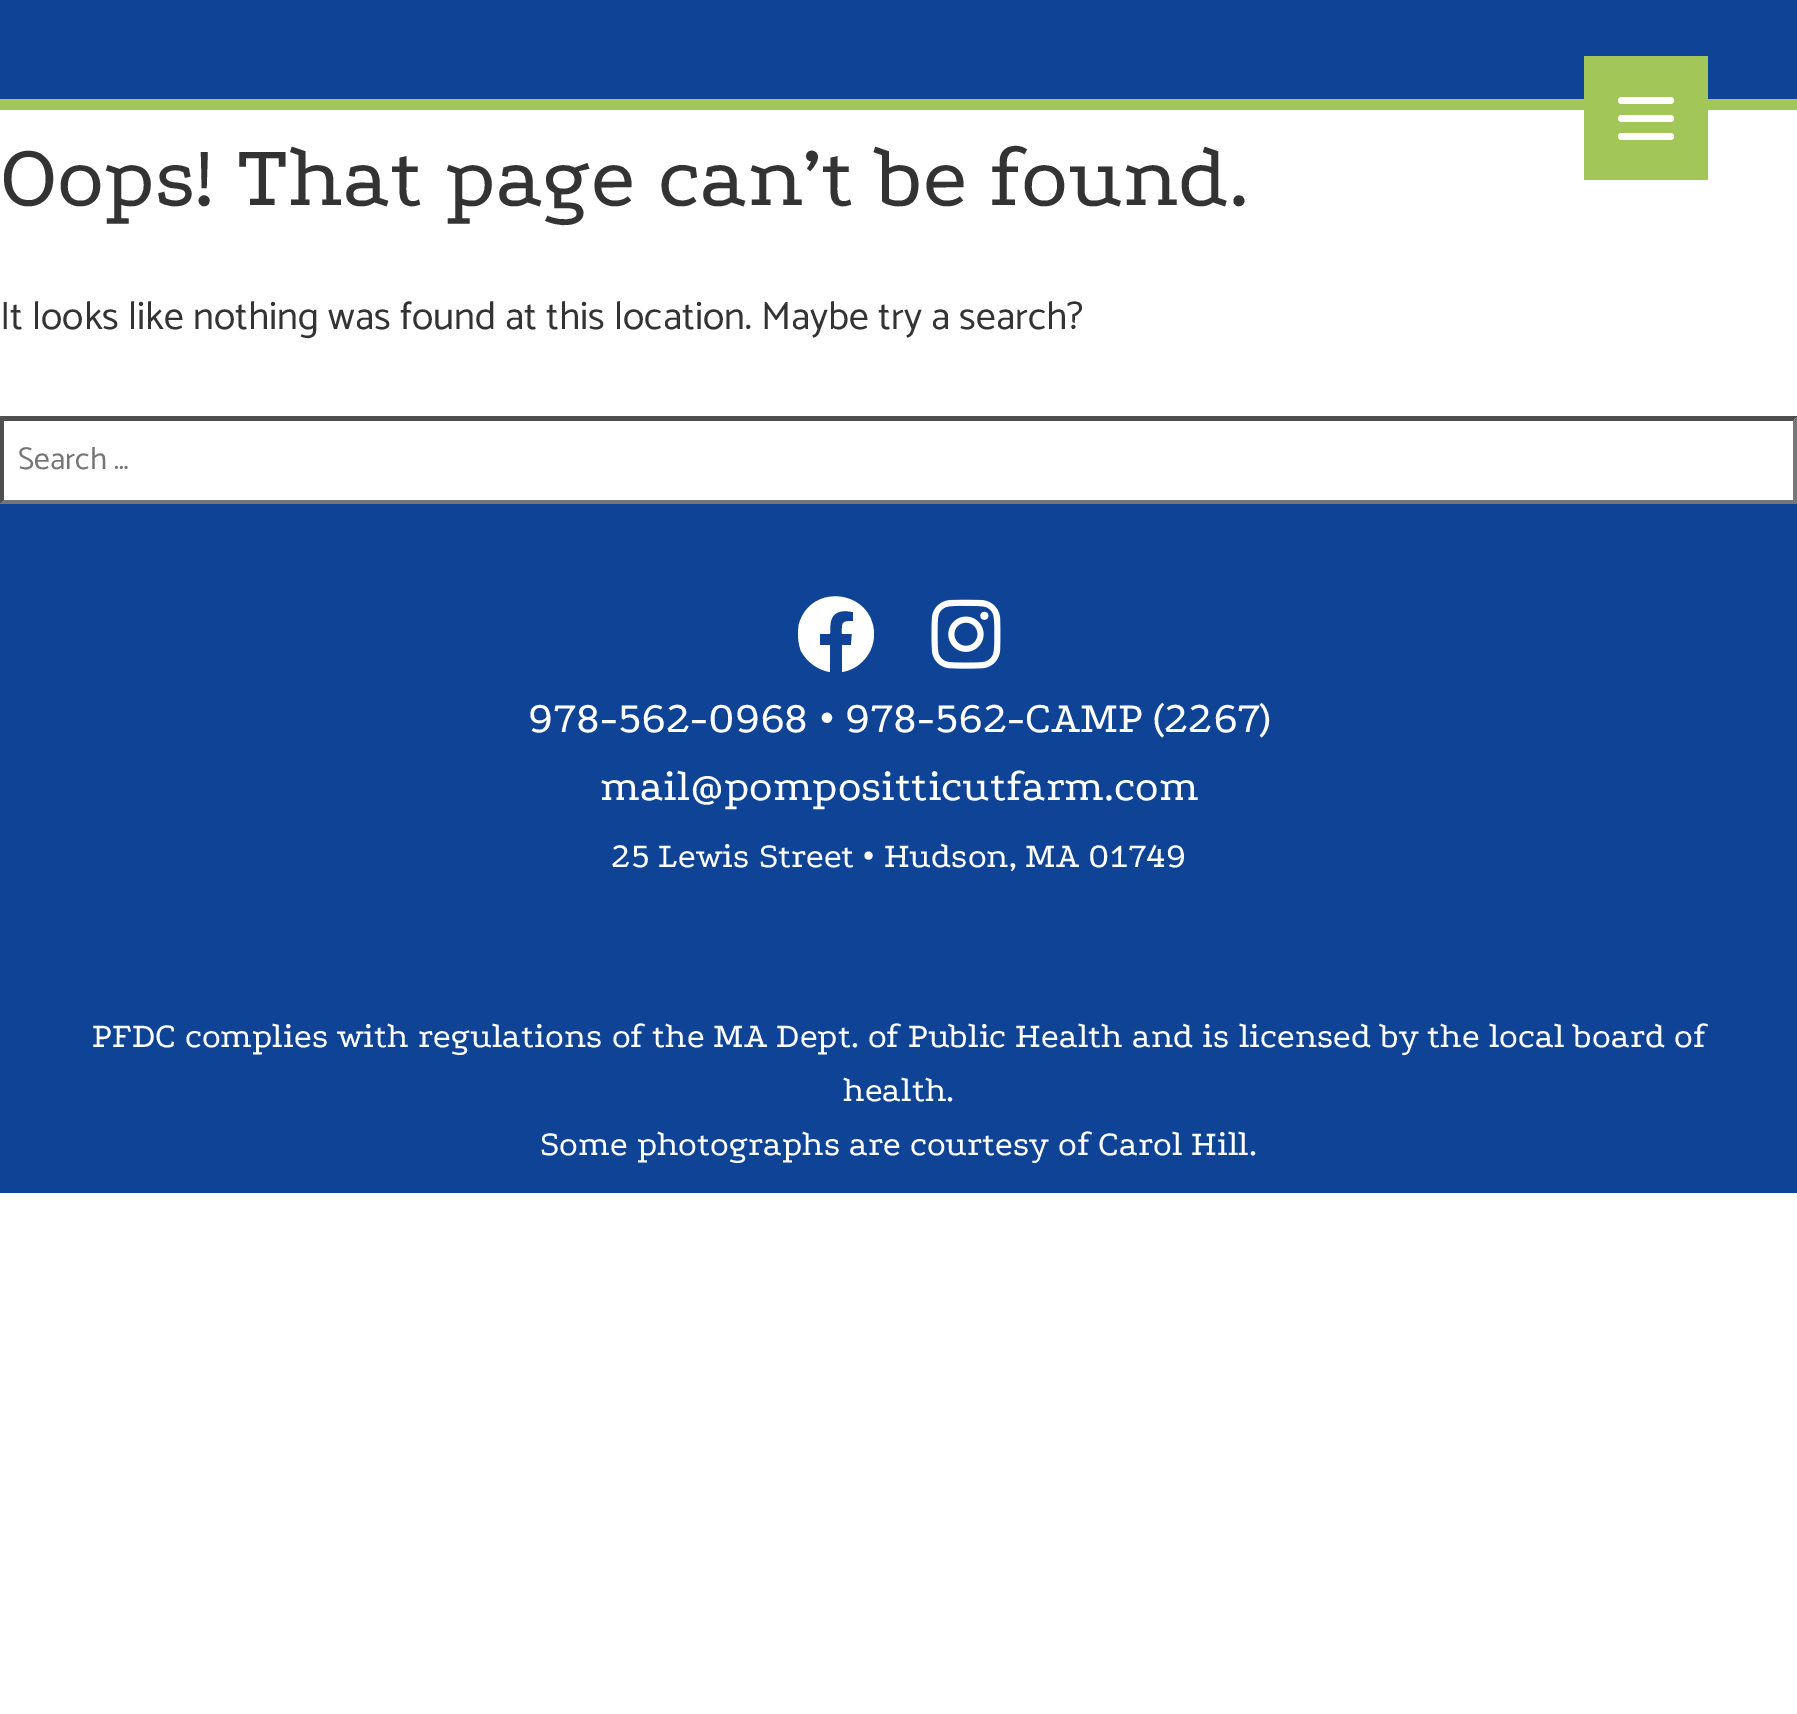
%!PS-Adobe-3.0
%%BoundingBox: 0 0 1797 1714
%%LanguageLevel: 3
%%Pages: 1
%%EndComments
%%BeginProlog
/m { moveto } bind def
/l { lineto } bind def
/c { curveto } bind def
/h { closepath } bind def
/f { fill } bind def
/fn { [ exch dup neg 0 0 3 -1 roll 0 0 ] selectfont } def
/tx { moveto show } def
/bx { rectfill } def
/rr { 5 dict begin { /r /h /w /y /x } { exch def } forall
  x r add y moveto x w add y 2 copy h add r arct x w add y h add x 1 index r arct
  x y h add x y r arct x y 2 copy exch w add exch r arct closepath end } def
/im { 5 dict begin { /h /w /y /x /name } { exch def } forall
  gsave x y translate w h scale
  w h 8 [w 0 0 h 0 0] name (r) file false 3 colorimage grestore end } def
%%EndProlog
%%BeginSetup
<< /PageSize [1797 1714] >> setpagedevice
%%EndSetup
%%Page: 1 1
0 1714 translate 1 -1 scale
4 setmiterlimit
1 setgray
0 0 1797 1714 bx
0.059 0.263 0.588 setrgbcolor
0 0 1797 99 bx
0.635 0.776 0.341 setrgbcolor
0 99 1797 11 bx
1584 56 124 124 bx
1 setgray
1618 115 56 7 3.5 rr f
1618 97 56 7 3.5 rr f
1618 133 56 7 3.5 rr f
/Podkova-Regular 90 fn
0.2 setgray
(Oops! That page can’t be found.) 0 205 tx
/Catamaran-Regular 39.6 fn
(It looks like nothing was found at this location. Maybe try a search?) 0 329 tx
0.31 setgray
0 416 m 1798 416 l 1793 421 l 4 421 l h f
0.463 setgray
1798 416 m 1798 504 l 1793 500 l 1793 421 l h f
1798 504 m 0 504 l 4 500 l 1793 500 l h f
0.31 setgray
0 504 m 0 416 l 4 421 l 4 500 l h f
/Catamaran-Regular 31.5 fn
0.459 setgray
(Search …) 18 469 tx
0.059 0.263 0.588 setrgbcolor
0 504 1797 689 bx
1 setgray
874 634 m 873 590 811 582 799 624 c 797 633 798 643 801 651 c 807 662 818 670 830 672 c 830 645 l 820 645 l 820 634 l 830 634 l 830 622 830 611 846 611 c 853 612 l 853 621 l 841 621 842 623 842 634 c 852 634 l 851 645 l 842 645 l 842 672 l 860 669 874 653 874 634 c h f
(image0.raw) 931 599 70 70 im
/Podkova-Regular 45 fn
(978-562-0968 • 978-562-CAMP \(2267\)) 528 732 tx
(mail@pompositticutfarm.com) 600 800 tx
/Podkova-Regular 36 fn
(25 Lewis Street • Hudson, MA 01749) 611 867 tx
(PFDC complies with regulations of the MA Dept. of Public Health and is licensed by the local board of) 92 1047 tx
(health.) 843 1101 tx
(Some photographs are courtesy of Carol Hill.) 540 1155 tx
showpage
%%EOF
